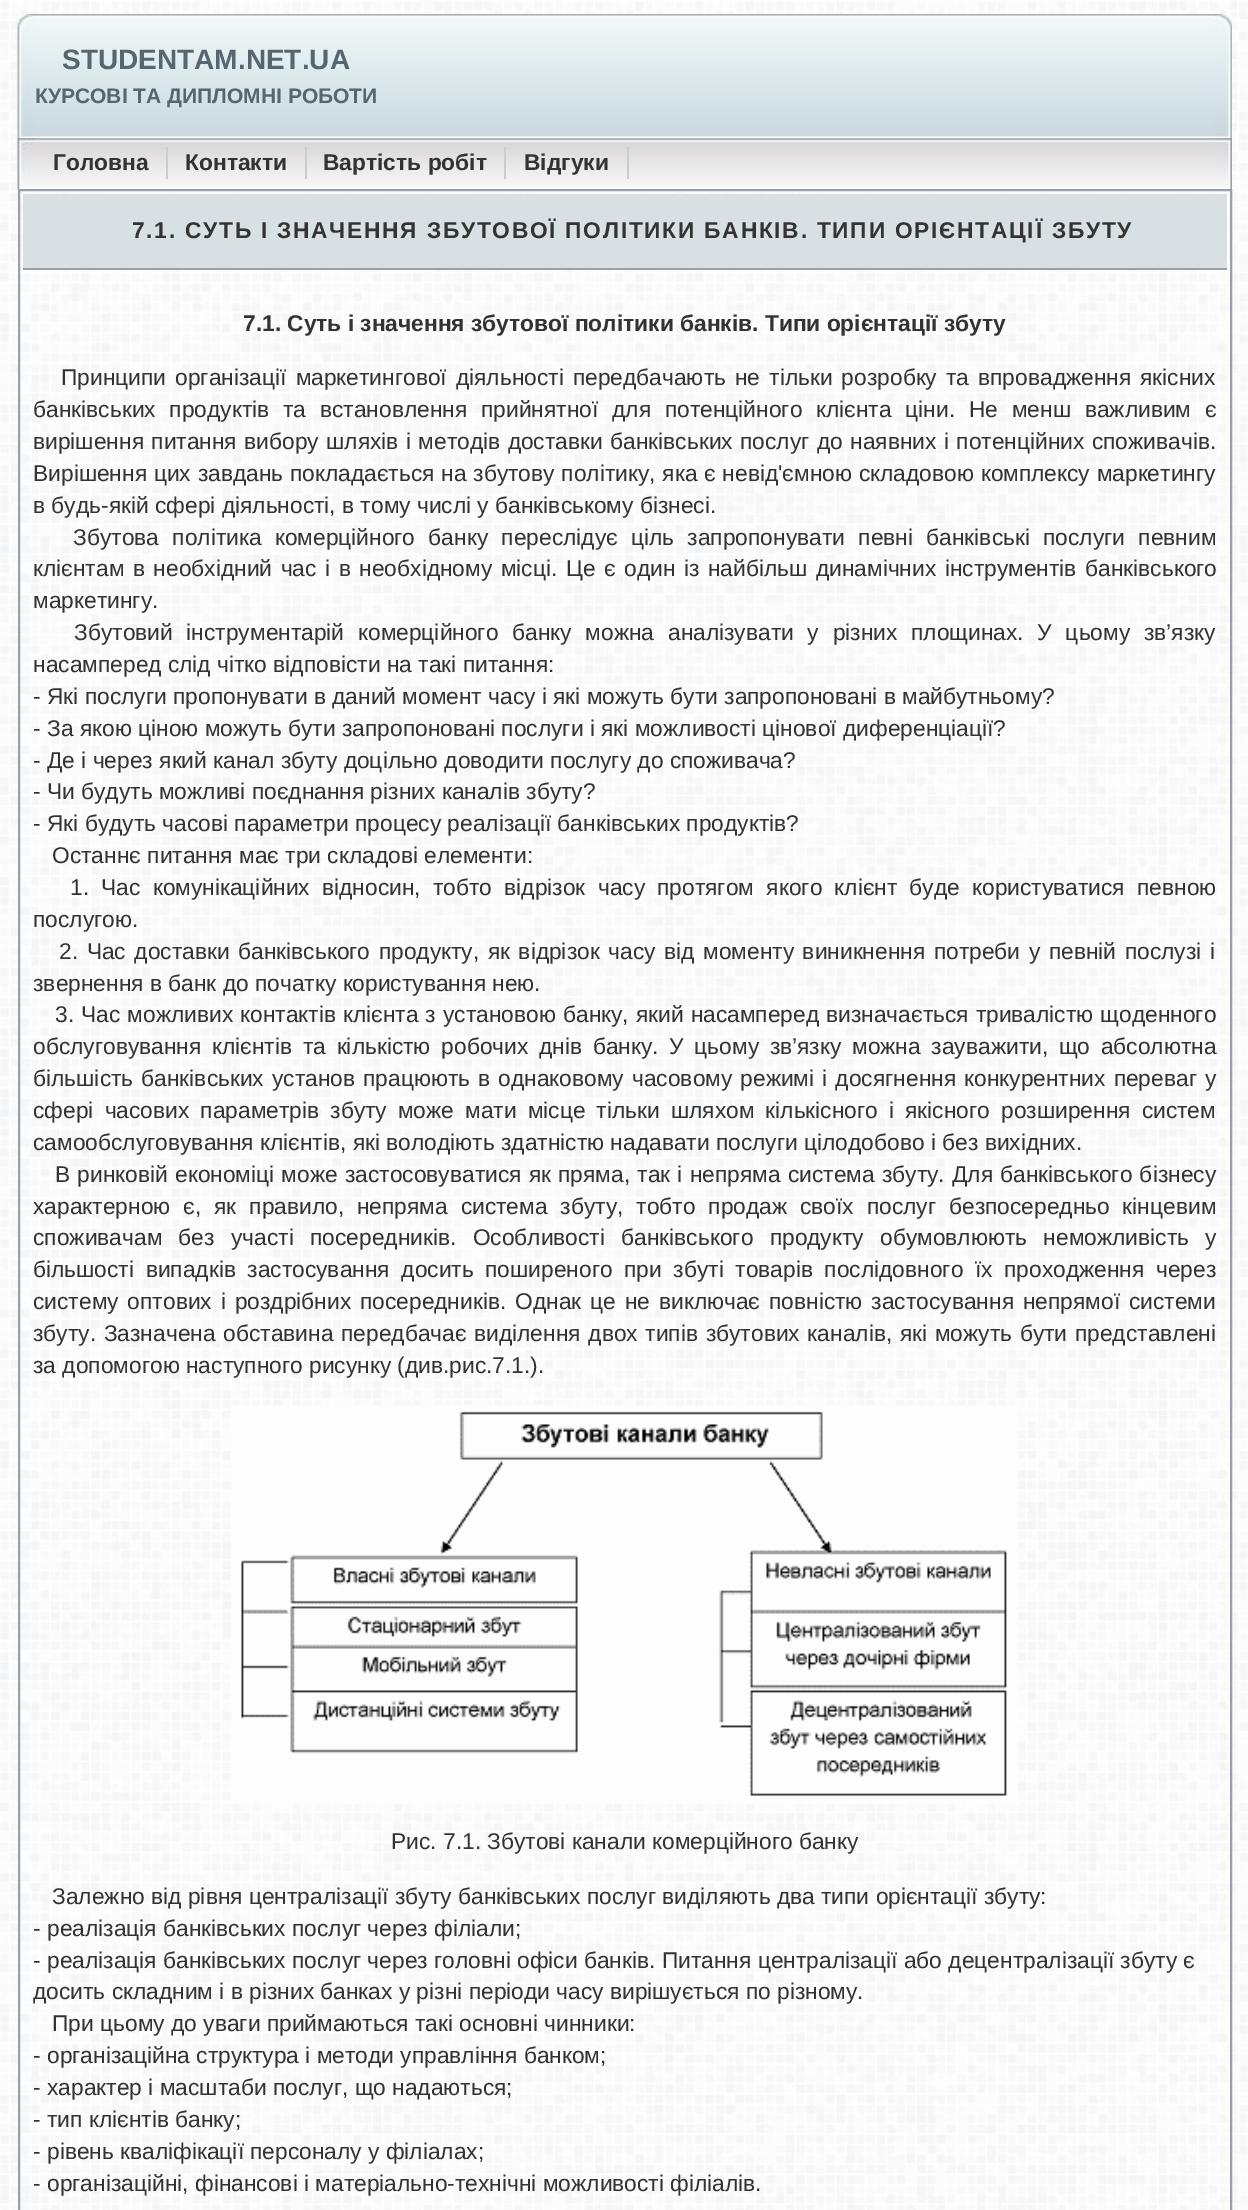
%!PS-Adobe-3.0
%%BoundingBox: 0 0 1248 2210
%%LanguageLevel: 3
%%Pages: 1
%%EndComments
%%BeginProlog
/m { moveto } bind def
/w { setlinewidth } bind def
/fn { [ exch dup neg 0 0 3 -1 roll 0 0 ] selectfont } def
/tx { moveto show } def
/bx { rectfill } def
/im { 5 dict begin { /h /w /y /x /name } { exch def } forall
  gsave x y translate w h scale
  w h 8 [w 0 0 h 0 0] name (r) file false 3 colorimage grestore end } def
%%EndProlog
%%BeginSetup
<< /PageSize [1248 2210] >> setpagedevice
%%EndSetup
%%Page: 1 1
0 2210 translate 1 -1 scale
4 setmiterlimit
1 setgray
0 0 1248 2210 bx
(image0.raw) 0 0 1248 2210 im
(image1.raw) 17 14 1198 124 im
(image4.raw) 17 138 1215 51 im
(image2.raw) 17 14 18 125 im
/LiberationSans-Bold 28 fn
0.337 0.4 0.431 setrgbcolor
(STUDENTAM.NET.UA) 62 69 tx
/LiberationSans-Bold 21 fn
(КУРСОВІ ТА ДИПЛОМНІ РОБОТИ) 35 103 tx
(image3.raw) 1214 14 18 125 im
(image5.raw) 17 138 18 51 im
0.8 setgray
166 147 2 32 bx
/LiberationSans-Bold 22.75 fn
0.2 setgray
(Головна) 53 170 tx
0.8 setgray
305 147 2 32 bx
0.2 setgray
(Контакти) 185 170 tx
0.8 setgray
504 147 2 32 bx
0.2 setgray
(Вартість робіт) 323 170 tx
0.8 setgray
627 147 2 32 bx
0.2 setgray
(Відгуки) 524 170 tx
(image6.raw) 1214 138 18 51 im
0.847 0.878 0.894 setrgbcolor
23 194 1204 74 bx
0.6 0.627 0.667 setrgbcolor
23 268 1204 2 bx
(image7.raw) 231 1405 787 399 im
2 w
19 190 1212 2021 rectstroke
0.2 setgray
132 238 m 1.75 0 (7.1. СУТЬ І ЗНАЧЕННЯ ЗБУТОВОЇ ПОЛІТИКИ БАНКІВ. ТИПИ ОРІЄНТАЦІЇ ЗБУТУ) ashow
(7.1. Суть і значення збутової політики банків. Типи орієнтації збуту) 243 331 tx
/LiberationSans-Regular 22.75 fn
61 385 m 2.75 0 32 (Принципи організації маркетингової діяльності передбачають не тільки розробку та впровадження якісних) widthshow
33 417 m 7.5 0 32 (банківських продуктів та встановлення прийнятної для потенційного клієнта ціни. Не менш важливим є) widthshow
33 449 m 1.1 0 32 (вирішення питання вибору шляхів і методів доставки банківських послуг до наявних і потенційних споживачів.) widthshow
33 481 m 0.5 0 32 (Вирішення цих завдань покладається на збутову політику, яка є невід'ємною складовою комплексу маркетингу) widthshow
(в будь-якій сфері діяльності, в тому числі у банківському бізнесі.) 33 513 tx
73 545 m 7 0 32 (Збутова політика комерційного банку переслідує ціль запропонувати певні банківські послуги певним) widthshow
33 576 m 2.25 0 32 (клієнтам в необхідний час і в необхідному місці. Це є один із найбільш динамічних інструментів банківського) widthshow
(маркетингу.) 33 608 tx
74 640 m 7.4 0 32 (Збутовий інструментарій комерційного банку можна аналізувати у різних площинах. У цьому зв’язку) widthshow
(насамперед слід чітко відповісти на такі питання:) 33 672 tx
(- Які послуги пропонувати в даний момент часу і які можуть бути запропоновані в майбутньому?) 33 704 tx
(- За якою ціною можуть бути запропоновані послуги і які можливості цінової диференціації?) 33 736 tx
(- Де і через який канал збуту доцільно доводити послугу до споживача?) 33 768 tx
(- Чи будуть можливі поєднання різних каналів збуту?) 33 799 tx
(- Які будуть часові параметри процесу реалізації банківських продуктів?) 33 831 tx
(Останнє питання має три складові елементи:) 52 863 tx
70 895 m 5.9 0 32 (1. Час комунікаційних відносин, тобто відрізок часу протягом якого клієнт буде користуватися певною) widthshow
(послугою.) 33 927 tx
59 959 m 2.25 0 32 (2. Час доставки банківського продукту, як відрізок часу від моменту виникнення потреби у певній послузі і) widthshow
(звернення в банк до початку користування нею.) 33 991 tx
55 1022 m 0.75 0 32 (3. Час можливих контактів клієнта з установою банку, який насамперед визначається тривалістю щоденного) widthshow
33 1054 m 4.4 0 32 (обслуговування клієнтів та кількістю робочих днів банку. У цьому зв’язку можна зауважити, що абсолютна) widthshow
33 1086 m 1.75 0 32 (більшість банківських установ працюють в однаковому часовому режимі і досягнення конкурентних переваг у) widthshow
33 1118 m 4.75 0 32 (сфері часових параметрів збуту може мати місце тільки шляхом кількісного і якісного розширення систем) widthshow
(самообслуговування клієнтів, які володіють здатністю надавати послуги цілодобово і без вихідних.) 33 1150 tx
55 1182 m 0.9 0 32 (В ринковій економіці може застосовуватися як пряма, так і непряма система збуту. Для банківського бізнесу) widthshow
33 1214 m 6.6 0 32 (характерною є, як правило, непряма система збуту, тобто продаж своїх послуг безпосередньо кінцевим) widthshow
33 1245 m 10 0 32 (споживачам без участі посередників. Особливості банківського продукту обумовлюють неможливість у) widthshow
33 1277 m 5.25 0 32 (більшості випадків застосування досить поширеного при збуті товарів послідовного їх проходження через) widthshow
33 1309 m 2.6 0 32 (систему оптових і роздрібних посередників. Однак це не виключає повністю застосування непрямої системи) widthshow
33 1341 m 1.4 0 32 (збуту. Зазначена обставина передбачає виділення двох типів збутових каналів, які можуть бути представлені) widthshow
(за допомогою наступного рисунку \(див.рис.7.1.\).) 33 1373 tx
(Рис. 7.1. Збутові канали комерційного банку) 391 1849 tx
(Залежно від рівня централізації збуту банківських послуг виділяють два типи орієнтації збуту:) 52 1904 tx
(- реалізація банківських послуг через філіали;) 33 1936 tx
(- реалізація банківських послуг через головні офіси банків. Питання централізації або децентралізації збуту є) 33 1968 tx
(досить складним і в різних банках у різні періоди часу вирішується по різному.) 33 1999 tx
(При цьому до уваги приймаються такі основні чинники:) 52 2031 tx
(- організаційна структура і методи управління банком;) 33 2063 tx
(- характер і масштаби послуг, що надаються;) 33 2095 tx
(- тип клієнтів банку;) 33 2127 tx
(- рівень кваліфікації персоналу у філіалах;) 33 2159 tx
(- організаційні, фінансові і матеріально-технічні можливості філіалів.) 33 2191 tx
showpage
%%EOF
